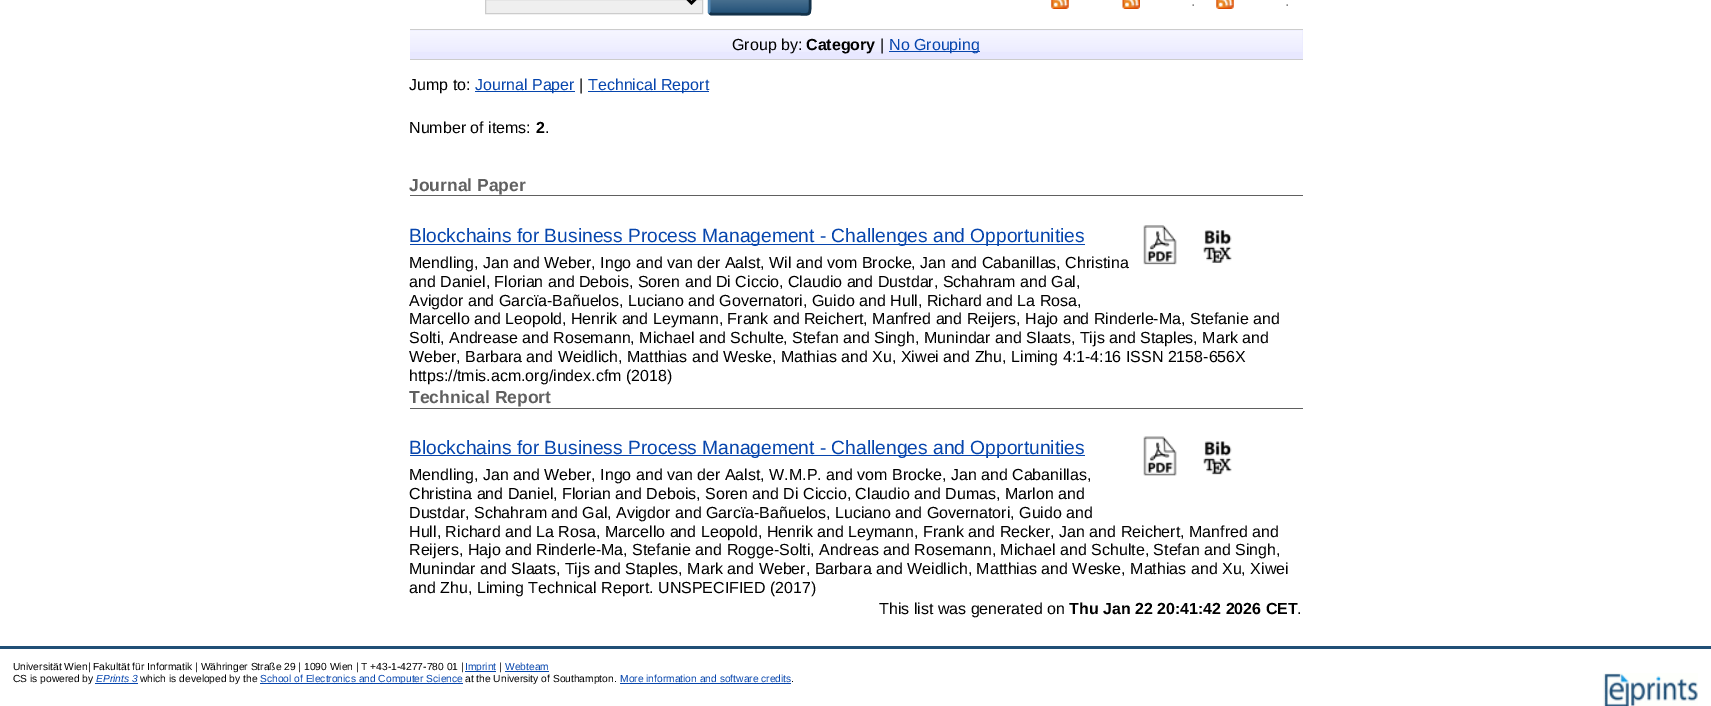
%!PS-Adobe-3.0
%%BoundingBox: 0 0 1711 706
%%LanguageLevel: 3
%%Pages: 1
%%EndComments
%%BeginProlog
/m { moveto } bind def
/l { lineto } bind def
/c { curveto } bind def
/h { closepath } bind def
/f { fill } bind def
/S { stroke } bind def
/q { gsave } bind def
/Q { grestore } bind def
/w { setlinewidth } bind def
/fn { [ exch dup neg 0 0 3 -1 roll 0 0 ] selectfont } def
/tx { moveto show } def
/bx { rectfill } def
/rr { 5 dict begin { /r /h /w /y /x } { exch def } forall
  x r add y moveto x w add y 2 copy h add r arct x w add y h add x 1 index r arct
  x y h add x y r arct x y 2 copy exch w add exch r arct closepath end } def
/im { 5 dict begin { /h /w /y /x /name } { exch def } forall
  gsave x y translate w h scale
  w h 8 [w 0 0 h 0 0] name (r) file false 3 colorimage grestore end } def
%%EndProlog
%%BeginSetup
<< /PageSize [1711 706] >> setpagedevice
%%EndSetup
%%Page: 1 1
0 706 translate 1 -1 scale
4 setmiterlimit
1 setgray
0 0 1711 706 bx
0.937 setgray
485.5 -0.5 m 702.5 -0.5 l 702.5 13.5 l 485.5 13.5 l h q f Q
0.8 setgray
S
0 setgray
2.5 w
686.5 -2 m 691.5 3 l 696.5 -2 l S
0.122 0.31 0.463 setrgbcolor
708 -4 103 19 4 rr f
(image0.raw) 709 0 102 13 im
0.075 0.196 0.29 setrgbcolor
809.5 -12 m 811 -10 810 -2 810 0.5 c 810 18 812 14 791.5 14 c 711 14 l 709.5 13 l S
0.322 0.529 0.702 setrgbcolor
709.5 13 m 709 12.5 709 12 709 11 c 709 -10 l 709 -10.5 709 -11.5 709.5 -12 c S
(image1.raw) 1051 0 18 9 im
(image2.raw) 1122 0 18 9 im
/LiberationSans-Regular 16 fn
0.533 setgray
(.) 1191 6 tx
(image1.raw) 1216 0 18 9 im
(.) 1285 6 tx
0.91 0.91 1 setrgbcolor
410 30 893 29 bx
(image3.raw) 410 30 893 22 im
0.8 setgray
410 29 893 1 bx
410 59 893 1 bx
0 setgray
(Group by:) 732 50 tx
/LiberationSans-Bold 16 fn
(Category) 806 50 tx
/LiberationSans-Regular 16 fn
(|) 880 50 tx
0.024 0.271 0.678 setrgbcolor
889 51 91 1 bx
(No Grouping) 889 50 tx
0 setgray
(Jump to:) 409 90 tx
0.024 0.271 0.678 setrgbcolor
475 91 100 1 bx
(Journal Paper) 475 90 tx
0 setgray
(|) 579 90 tx
0.024 0.271 0.678 setrgbcolor
588 91 121 1 bx
(Technical Report) 588 90 tx
0 setgray
(Number of items:) 409 133 tx
/LiberationSans-Bold 16 fn
(2) 536 133 tx
/LiberationSans-Regular 16 fn
(.) 545 133 tx
0.376 setgray
410 195 893 1 bx
/LiberationSans-Bold 17.5 fn
(Journal Paper) 409 191 tx
(image4.raw) 1143 225 34 40 im
(image5.raw) 1203 230 29 33 im
0.024 0.271 0.678 setrgbcolor
410 244 675 1 bx
/LiberationSans-Regular 19.2 fn
(Blockchains for Business Process Management - Challenges and Opportunities) 409 242 tx
/LiberationSans-Regular 16 fn
0 setgray
(Mendling, Jan and Weber, Ingo and van der Aalst, Wil and vom Brocke, Jan and Cabanillas, Christina) 409 268 tx
(and Daniel, Florian and Debois, Soren and Di Ciccio, Claudio and Dustdar, Schahram and Gal,) 409 287 tx
(Avigdor and Garcïa-Bañuelos, Luciano and Governatori, Guido and Hull, Richard and La Rosa,) 409 306 tx
(Marcello and Leopold, Henrik and Leymann, Frank and Reichert, Manfred and Reijers, Hajo and Rinderle-Ma, Stefanie and) 409 324 tx
(Solti, Andrease and Rosemann, Michael and Schulte, Stefan and Singh, Munindar and Slaats, Tijs and Staples, Mark and) 409 343 tx
(Weber, Barbara and Weidlich, Matthias and Weske, Mathias and Xu, Xiwei and Zhu, Liming 4:1-4:16 ISSN 2158-656X) 409 362 tx
(https://tmis.acm.org/index.cfm \(2018\)) 409 381 tx
0.376 setgray
410 408 893 1 bx
/LiberationSans-Bold 17.5 fn
(Technical Report) 409 403 tx
(image6.raw) 1143 436 34 40 im
(image7.raw) 1203 441 29 34 im
0.024 0.271 0.678 setrgbcolor
410 455 675 1 bx
/LiberationSans-Regular 19.2 fn
(Blockchains for Business Process Management - Challenges and Opportunities) 409 454 tx
/LiberationSans-Regular 16 fn
0 setgray
(Mendling, Jan and Weber, Ingo and van der Aalst, W.M.P. and vom Brocke, Jan and Cabanillas,) 409 480 tx
(Christina and Daniel, Florian and Debois, Soren and Di Ciccio, Claudio and Dumas, Marlon and) 409 499 tx
(Dustdar, Schahram and Gal, Avigdor and Garcïa-Bañuelos, Luciano and Governatori, Guido and) 409 518 tx
(Hull, Richard and La Rosa, Marcello and Leopold, Henrik and Leymann, Frank and Recker, Jan and Reichert, Manfred and) 409 537 tx
(Reijers, Hajo and Rinderle-Ma, Stefanie and Rogge-Solti, Andreas and Rosemann, Michael and Schulte, Stefan and Singh,) 409 555 tx
(Munindar and Slaats, Tijs and Staples, Mark and Weber, Barbara and Weidlich, Matthias and Weske, Mathias and Xu, Xiwei) 409 574 tx
(and Zhu, Liming Technical Report. UNSPECIFIED \(2017\)) 409 593 tx
(This list was generated on) 879 614 tx
/LiberationSans-Bold 16 fn
(Thu Jan 22 20:41:42 2026 CET) 1069 614 tx
/LiberationSans-Regular 16 fn
(.) 1297 614 tx
0.125 0.31 0.463 setrgbcolor
0 646 1711 3 bx
/LiberationSans-Regular 10.25 fn
0 setgray
(Universität Wien| Fakultät für Informatik | Währinger Straße 29 | 1090 Wien | T +43-1-4277-780 01 |) 13 670 tx
0.024 0.271 0.678 setrgbcolor
465 671 31 1 bx
(Imprint) 465 670 tx
0 setgray
(|) 499 670 tx
0.024 0.271 0.678 setrgbcolor
(Webteam) 505 670 tx
505 671 44 1 bx
0 setgray
(CS is powered by) 13 682 tx
/LiberationSans-Italic 10.25 fn
0.024 0.271 0.678 setrgbcolor
(EPrints 3) 96 682 tx
95 683 43 1 bx
/LiberationSans-Regular 10.25 fn
0 setgray
(which is developed by the) 140 682 tx
0.024 0.271 0.678 setrgbcolor
260 683 203 1 bx
(School of Electronics and Computer Science) 260 682 tx
0 setgray
(at the University of Southampton.) 465 682 tx
0.024 0.271 0.678 setrgbcolor
(More information and software credits) 620 682 tx
620 683 171 1 bx
0 setgray
(.) 791 682 tx
(image8.raw) 1603 673 95 33 im
showpage
%%EOF
